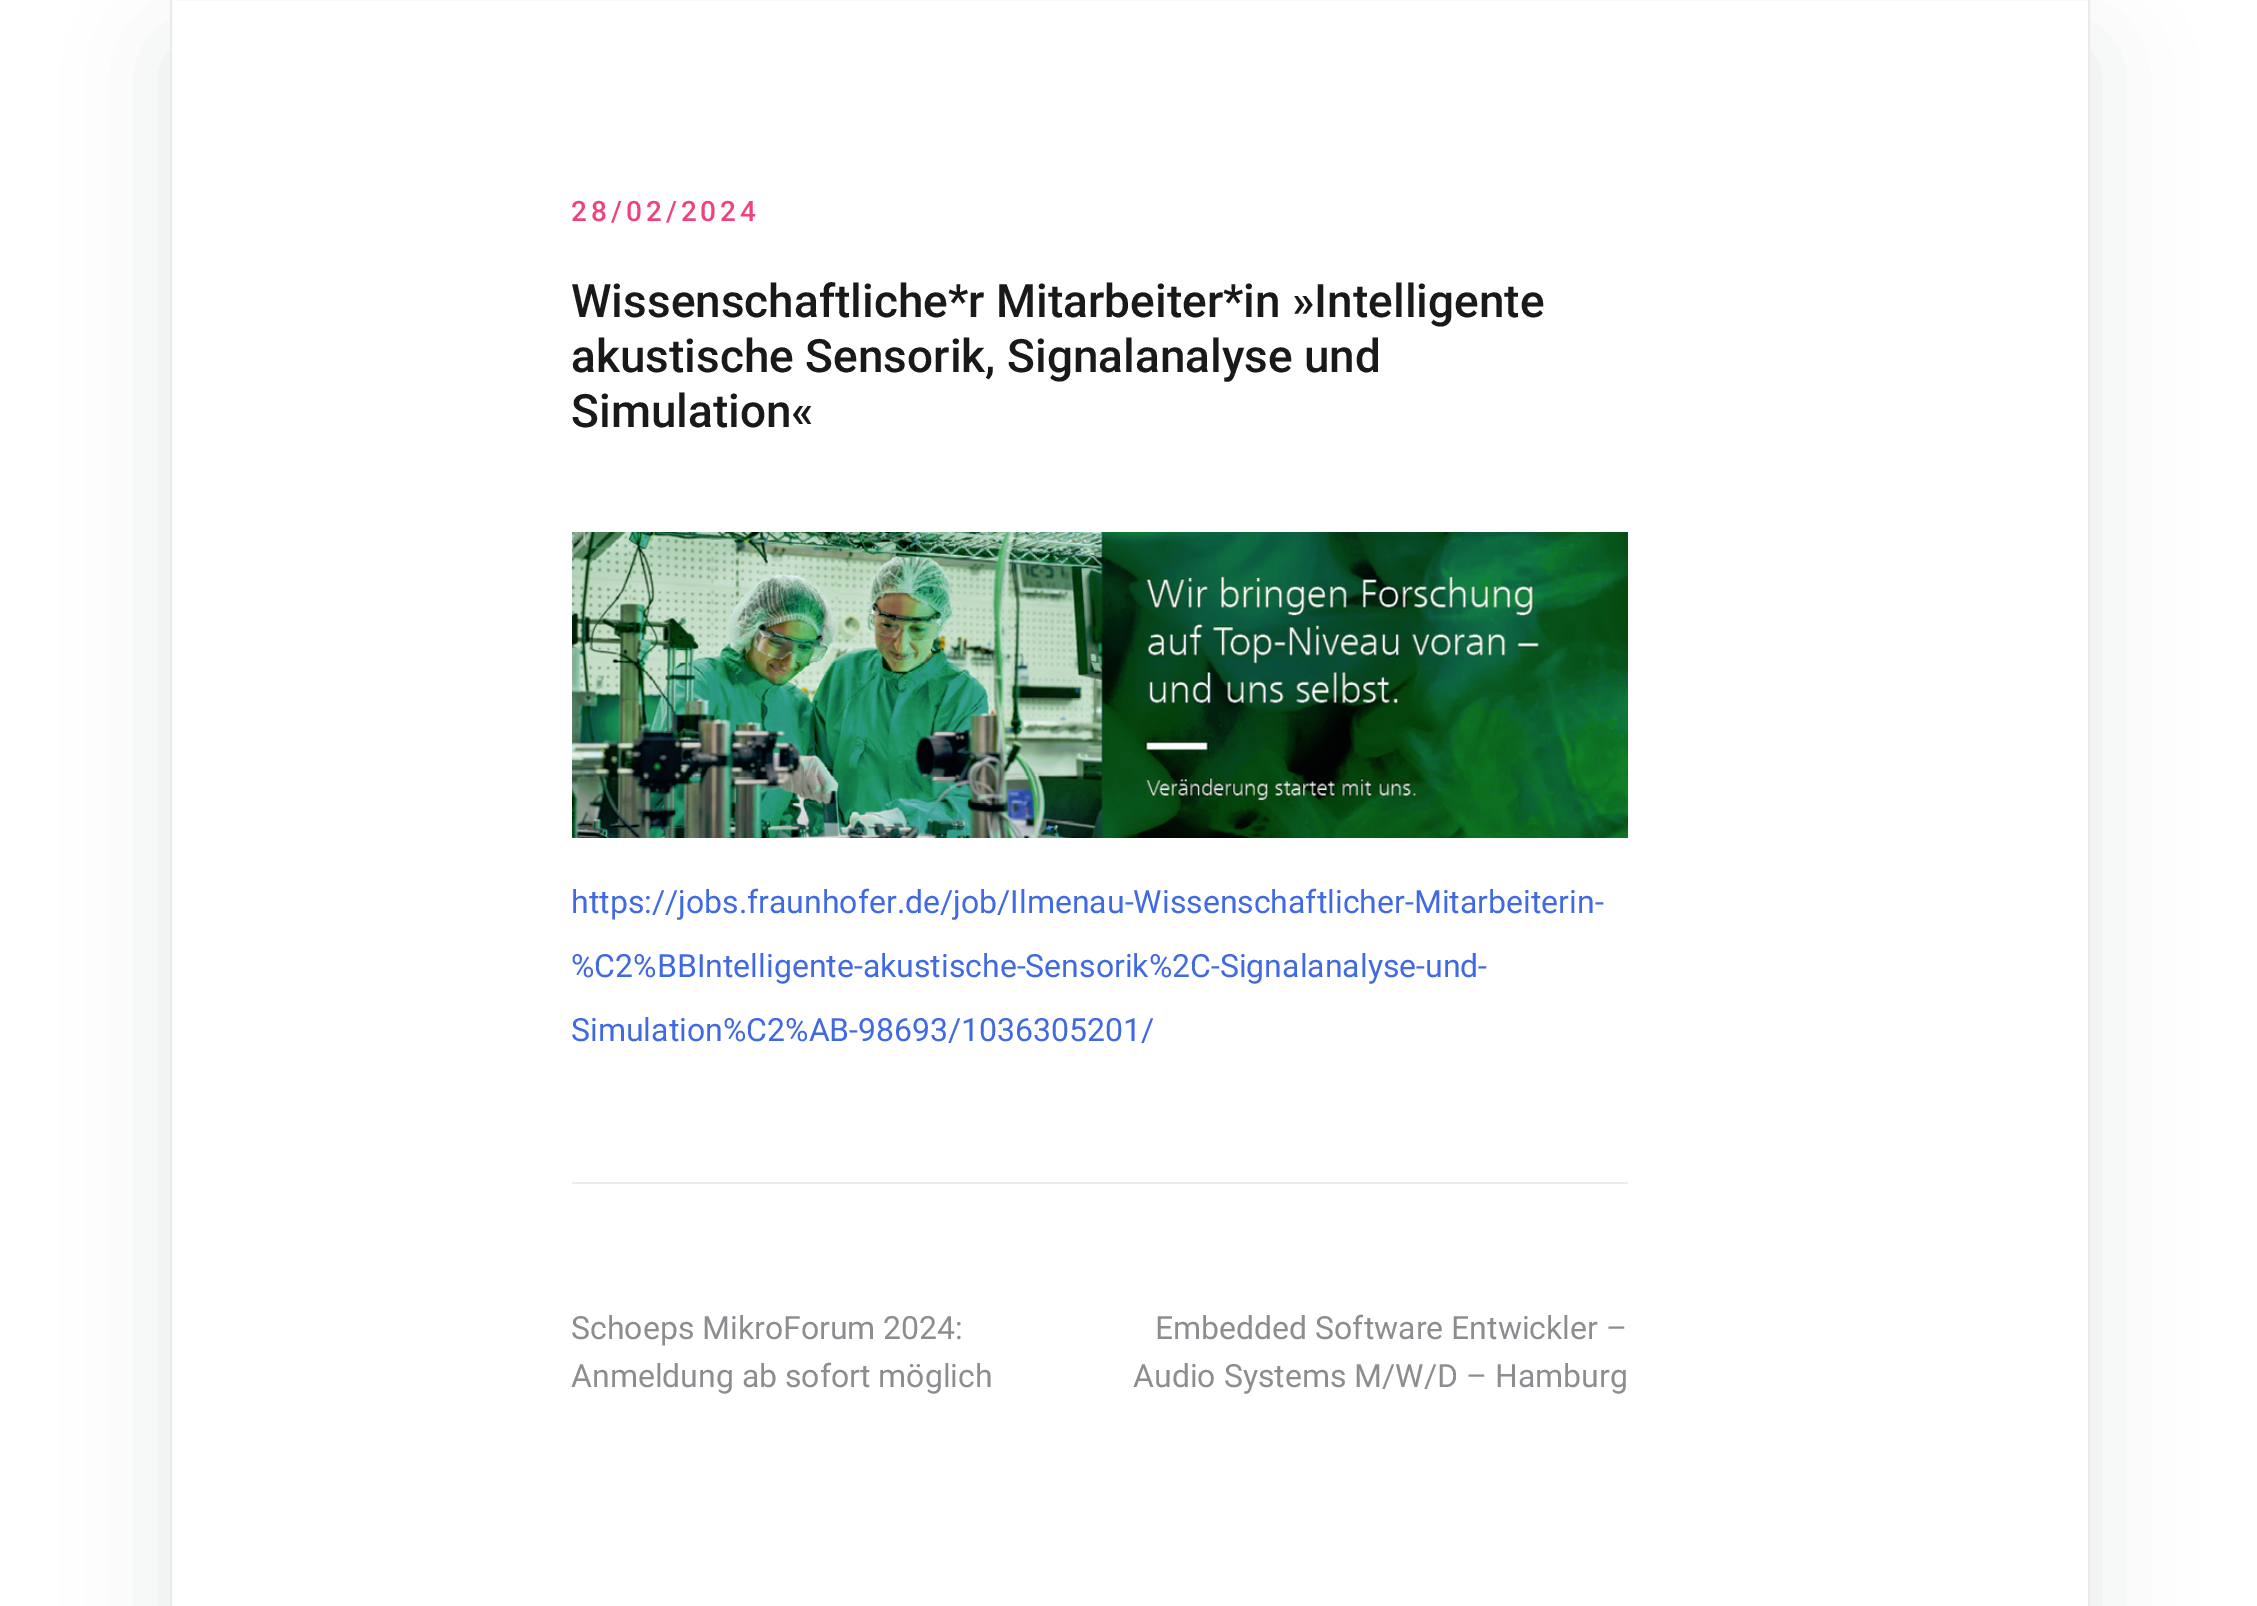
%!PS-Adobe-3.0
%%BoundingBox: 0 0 2257 1606
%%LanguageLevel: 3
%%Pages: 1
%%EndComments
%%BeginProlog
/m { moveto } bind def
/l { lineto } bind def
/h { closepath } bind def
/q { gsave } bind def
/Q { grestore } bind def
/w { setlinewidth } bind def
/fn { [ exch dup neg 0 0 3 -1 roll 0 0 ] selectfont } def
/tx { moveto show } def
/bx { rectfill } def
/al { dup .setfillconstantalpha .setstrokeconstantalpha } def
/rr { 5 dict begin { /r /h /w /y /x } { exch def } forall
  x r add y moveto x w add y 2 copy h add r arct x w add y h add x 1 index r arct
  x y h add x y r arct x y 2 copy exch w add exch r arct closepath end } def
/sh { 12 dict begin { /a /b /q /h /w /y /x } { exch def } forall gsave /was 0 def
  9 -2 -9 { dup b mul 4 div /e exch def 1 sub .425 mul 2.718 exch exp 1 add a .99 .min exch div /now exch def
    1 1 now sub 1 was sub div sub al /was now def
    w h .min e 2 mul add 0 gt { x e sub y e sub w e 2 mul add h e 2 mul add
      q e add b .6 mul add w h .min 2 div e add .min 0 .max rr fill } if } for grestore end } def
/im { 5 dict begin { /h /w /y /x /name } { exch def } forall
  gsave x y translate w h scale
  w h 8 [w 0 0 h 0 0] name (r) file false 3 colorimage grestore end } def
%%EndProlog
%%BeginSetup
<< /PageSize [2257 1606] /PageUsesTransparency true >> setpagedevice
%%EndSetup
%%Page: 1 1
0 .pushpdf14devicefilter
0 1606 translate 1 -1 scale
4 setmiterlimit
1 setgray
0 0 2257 1606 bx
q
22 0 m 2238 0 l 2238 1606 l 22 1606 l h 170 -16 m 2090 -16 l 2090 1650 l 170 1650 l h eoclip newpath
0.337 0.451 0.475 setrgbcolor
170 50 1920 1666 0 49 0.15 sh
Q
0.922 setgray
2 w
171 -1 1918 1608 rectstroke
572 1182 1056 2 bx
/Roboto-Medium 28 fn
0.941 0.263 0.494 setrgbcolor
571 221 m 4 0 (28/02/2024) ashow
/Roboto-Medium 46 fn
0.098 setgray
(Wissenschaftliche*r Mitarbeiter*in »Intelligente) 571 317 tx
(akustische Sensorik, Signalanalyse und) 571 372 tx
(Simulation«) 571 427 tx
(image0.raw) 572 532 1056 306 im
/Roboto-Regular 32 fn
0.255 0.412 0.882 setrgbcolor
(https://jobs.fraunhofer.de/job/Ilmenau-Wissenschaftlicher-Mitarbeiterin-) 571 913 tx
(%C2%BBIntelligente-akustische-Sensorik%2C-Signalanalyse-und-) 571 977 tx
(Simulation%C2%AB-98693/1036305201/) 571 1041 tx
0.549 0.553 0.565 setrgbcolor
(Schoeps MikroForum 2024:) 571 1339 tx
(Anmeldung ab sofort möglich) 571 1387 tx
(Embedded Software Entwickler –) 1155 1339 tx
(Audio Systems M/W/D – Hamburg) 1133 1387 tx
.poppdf14devicefilter showpage
%%EOF
